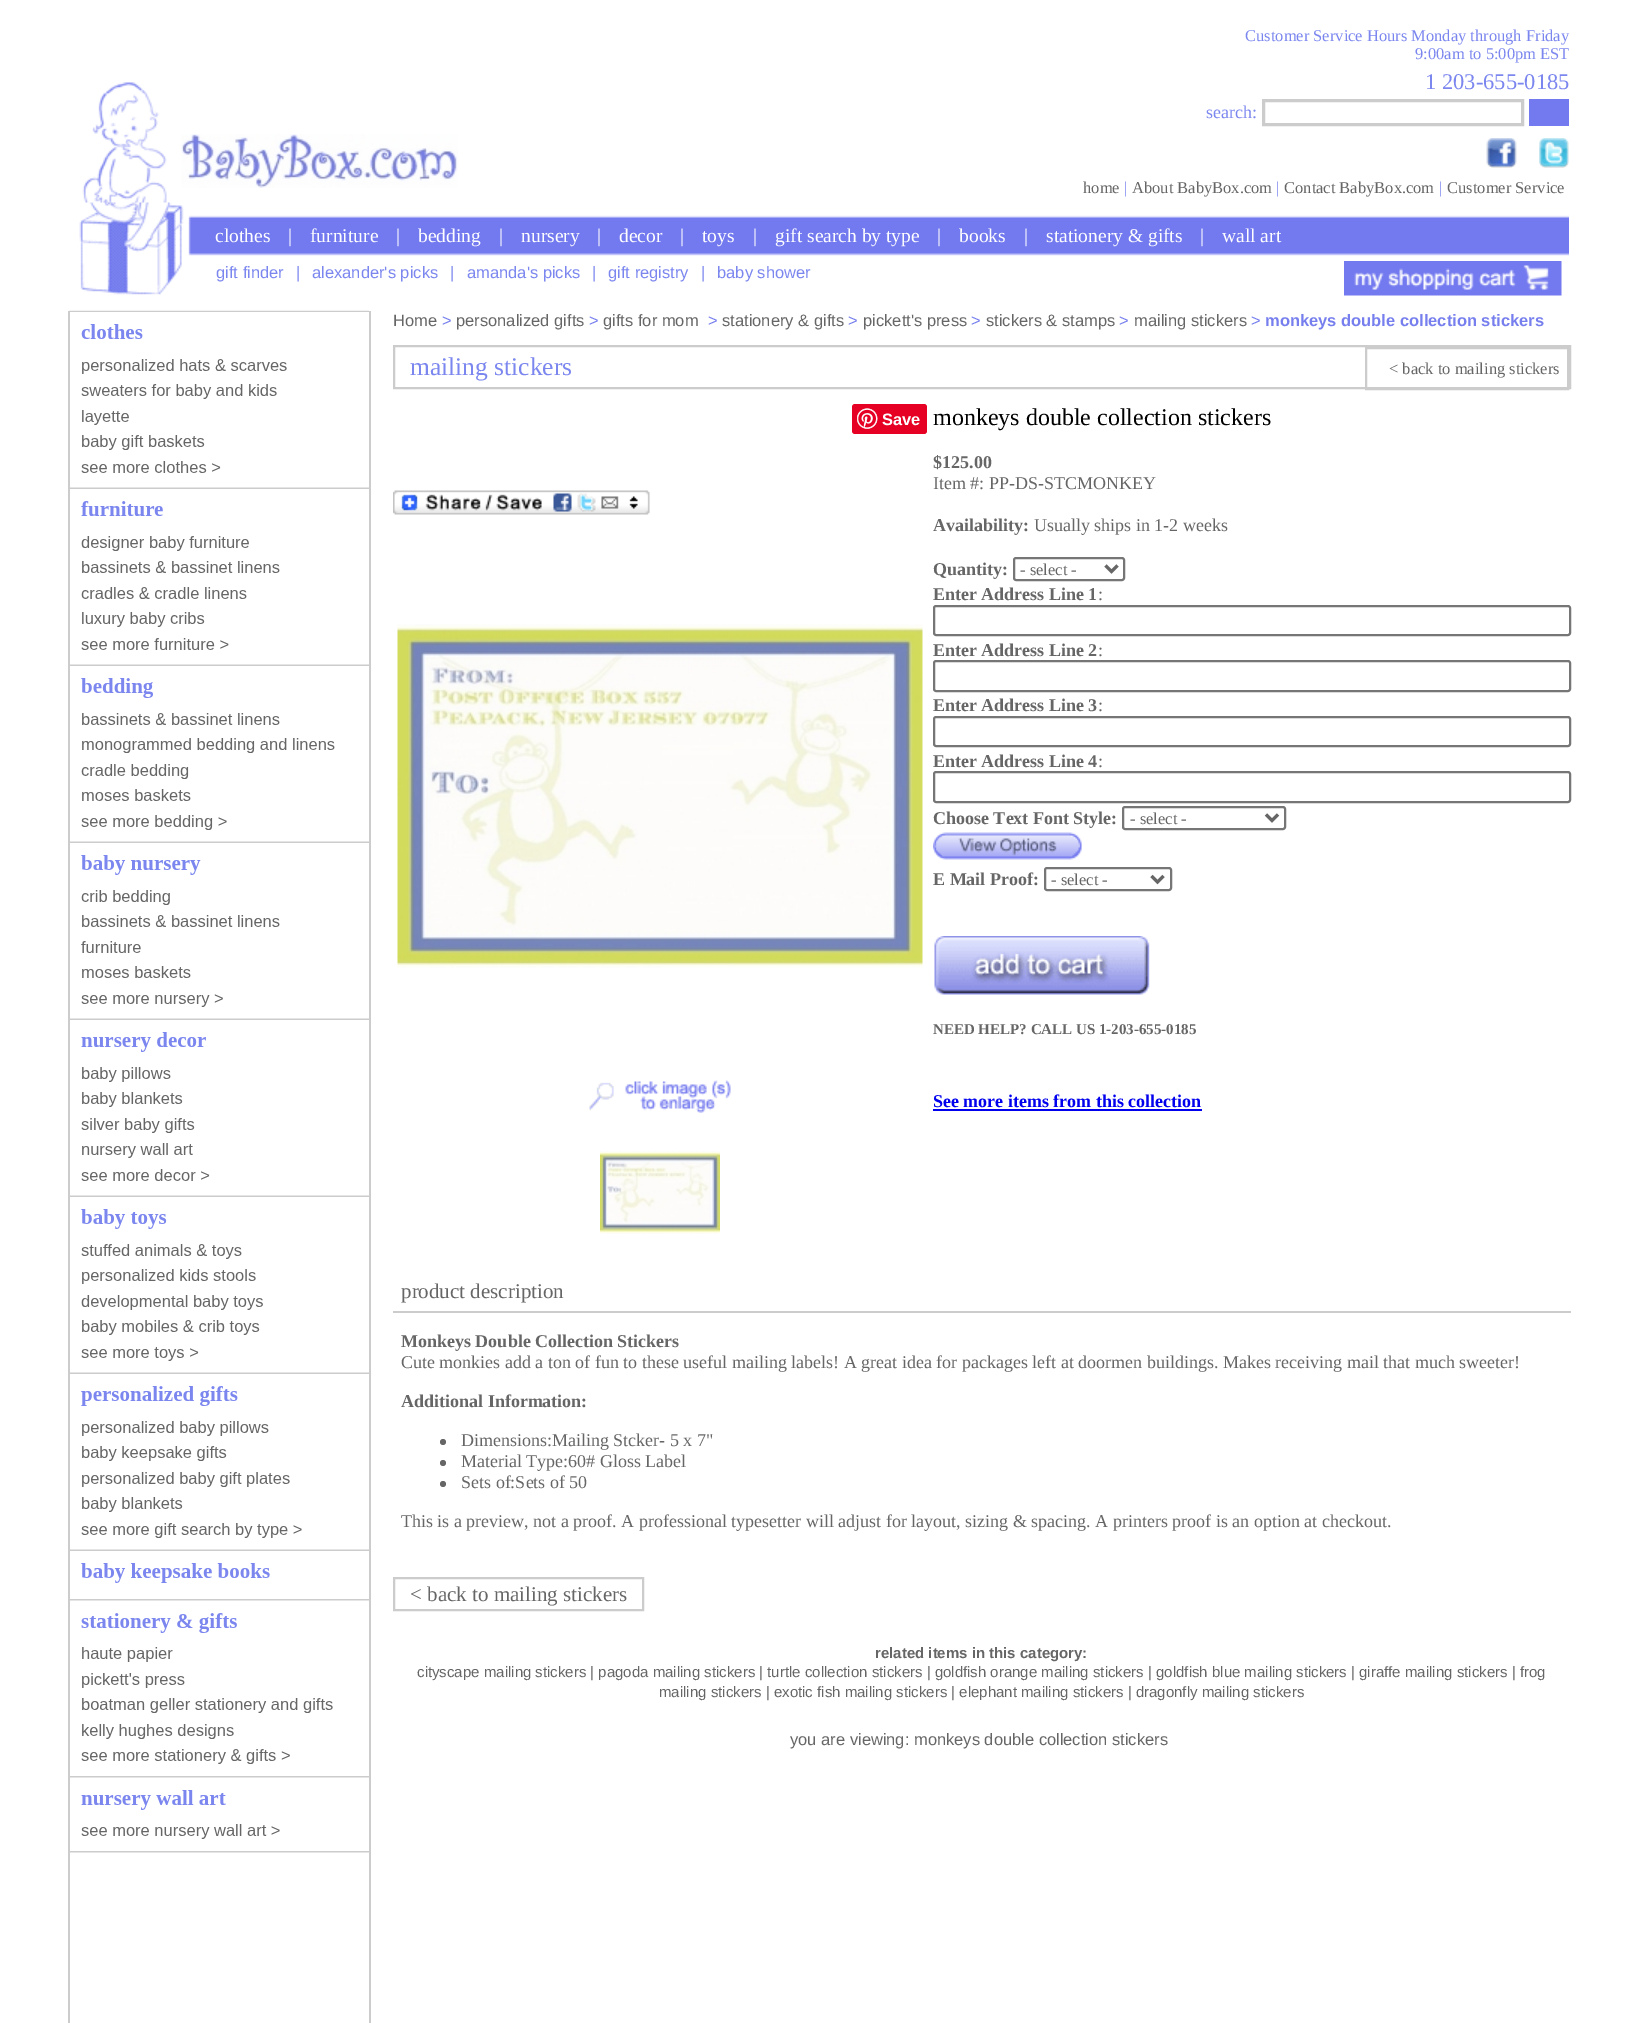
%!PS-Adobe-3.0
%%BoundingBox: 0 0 1638 2023
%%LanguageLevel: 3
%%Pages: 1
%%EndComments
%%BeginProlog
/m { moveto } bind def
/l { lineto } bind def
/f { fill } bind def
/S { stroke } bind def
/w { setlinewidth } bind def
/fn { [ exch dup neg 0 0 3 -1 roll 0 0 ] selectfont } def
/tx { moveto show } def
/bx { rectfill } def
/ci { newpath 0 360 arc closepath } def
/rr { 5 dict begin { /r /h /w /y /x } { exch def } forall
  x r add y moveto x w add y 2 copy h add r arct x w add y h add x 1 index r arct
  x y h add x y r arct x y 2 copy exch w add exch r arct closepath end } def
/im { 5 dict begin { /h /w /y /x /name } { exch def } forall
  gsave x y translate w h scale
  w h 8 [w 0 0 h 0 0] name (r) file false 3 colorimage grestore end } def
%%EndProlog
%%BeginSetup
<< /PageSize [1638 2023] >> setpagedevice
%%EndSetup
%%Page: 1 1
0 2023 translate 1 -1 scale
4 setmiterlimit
1 setgray
0 0 1638 2023 bx
(image0.raw) 79 82 1490 213 im
(image1.raw) 181 134 277 54 im
/LiberationSerif-Regular 16.5 fn
0.482 0.525 0.937 setrgbcolor
(Customer Service Hours Monday through Friday) 1245 41 tx
(9:00am to 5:00pm EST) 1415 59 tx
/LiberationSerif-Regular 22.5 fn
(1 203-655-0185) 1425 89 tx
/LiberationSerif-Regular 18 fn
(search:) 1206 118 tx
0.8 setgray
3 w
1263.5 100.5 259 24 rectstroke
0.451 0.475 0.937 setrgbcolor
1529 99 40 27 bx
(image2.raw) 1486 138 31 30 im
(image3.raw) 1539 138 30 30 im
/LiberationSerif-Regular 16.5 fn
0.4 setgray
(home) 1083 193 tx
0.482 0.525 0.937 setrgbcolor
(|) 1124 193 tx
0.4 setgray
(About BabyBox.com) 1132 193 tx
0.482 0.525 0.937 setrgbcolor
(|) 1276 193 tx
0.4 setgray
(Contact BabyBox.com) 1284 193 tx
0.482 0.525 0.937 setrgbcolor
(|) 1439 193 tx
0.4 setgray
(Customer Service) 1447 193 tx
/LiberationSerif-Regular 19.5 fn
1 setgray
(clothes) 215 242 tx
(|) 288 242 tx
(furniture) 310 242 tx
(|) 396 242 tx
(bedding) 418 242 tx
(|) 499 242 tx
(nursery) 521 242 tx
(|) 597 242 tx
(decor) 619 242 tx
(|) 680 242 tx
(toys) 702 242 tx
(|) 753 242 tx
(gift search by type) 775 242 tx
(|) 937 242 tx
(books) 959 242 tx
(|) 1024 242 tx
(stationery & gifts) 1046 242 tx
(|) 1200 242 tx
(wall art) 1222 242 tx
/LiberationSans-Regular 16.5 fn
0.482 0.525 0.937 setrgbcolor
(gift finder) 216 278 tx
(|) 296 278 tx
(alexander's picks) 312 278 tx
(|) 450 278 tx
(amanda's picks) 467 278 tx
(|) 592 278 tx
(gift registry) 608 278 tx
(|) 701 278 tx
(baby shower) 717 278 tx
(image4.raw) 1344 261 218 35 im
0.8 setgray
369 311 2 1712 bx
68 311 2 1712 bx
(image5.raw) 69 310 300 1543 im
0.4 setgray
(Home) 393 326 tx
0.467 0.498 0.933 setrgbcolor
(>) 442 326 tx
0.4 setgray
(personalized gifts) 456 326 tx
0.467 0.498 0.933 setrgbcolor
(>) 589 326 tx
0.4 setgray
(gifts for mom) 603 326 tx
0.467 0.498 0.933 setrgbcolor
(>) 708 326 tx
0.4 setgray
(stationery & gifts) 722 326 tx
0.467 0.498 0.933 setrgbcolor
(>) 848 326 tx
0.4 setgray
(pickett's press) 863 326 tx
0.467 0.498 0.933 setrgbcolor
(>) 971 326 tx
0.4 setgray
(stickers & stamps) 986 326 tx
0.467 0.498 0.933 setrgbcolor
(>) 1119 326 tx
0.4 setgray
(mailing stickers) 1134 326 tx
0.467 0.498 0.933 setrgbcolor
(>) 1251 326 tx
/LiberationSans-Bold 16.5 fn
(monkeys double collection stickers) 1265 326 tx
0.8 setgray
2 w
394 346 1176 42 rectstroke
/LiberationSerif-Regular 25.5 fn
0.482 0.525 0.937 setrgbcolor
(mailing stickers) 410 375 tx
0.8 setgray
1366 348 202 41 rectstroke
/LiberationSerif-Regular 16.5 fn
0.4 setgray
(< back to mailing stickers) 1389 374 tx
0.902 0 0.137 setrgbcolor
852 404 75 30 3 rr f
(image6.raw) 857 408 21 21 im
/LiberationSans-Bold 16.5 fn
1 setgray
(Save) 882 425 tx
(image7.raw) 393 490 257 25 im
(image8.raw) 397 624 526 344 im
(image9.raw) 589 1080 142 33 im
(image10.raw) 600 1151 120 83 im
/LiberationSerif-Regular 24 fn
0 setgray
(monkeys double collection stickers) 933 425 tx
/LiberationSerif-Bold 18 fn
0.4 setgray
($125.00) 933 468 tx
/LiberationSerif-Regular 18 fn
(Item #: PP-DS-STCMONKEY) 933 489 tx
/LiberationSerif-Bold 18 fn
(Availability:) 933 531 tx
/LiberationSerif-Regular 18 fn
(Usually ships in 1-2 weeks) 1034 531 tx
/LiberationSerif-Bold 18 fn
(Quantity:) 933 575 tx
0.463 setgray
1014 558 110 22 2 rr S
0.4 setgray
3 w
1105.5 565.5 m 1111.5 571.5 l 1117.5 565.5 l S
/LiberationSerif-Regular 16.5 fn
(- select -) 1020 575 tx
/LiberationSerif-Bold 18 fn
(Enter Address Line 1) 933 600 tx
/LiberationSerif-Regular 18 fn
(:) 1098 600 tx
0.463 setgray
2 w
934 606 636 29 2 rr S
/LiberationSerif-Bold 18 fn
0.4 setgray
(Enter Address Line 2) 933 656 tx
/LiberationSerif-Regular 18 fn
(:) 1098 656 tx
0.463 setgray
934 661 636 30 2 rr S
/LiberationSerif-Bold 18 fn
0.4 setgray
(Enter Address Line 3) 933 711 tx
/LiberationSerif-Regular 18 fn
(:) 1098 711 tx
0.463 setgray
934 717 636 29 2 rr S
/LiberationSerif-Bold 18 fn
0.4 setgray
(Enter Address Line 4) 933 767 tx
/LiberationSerif-Regular 18 fn
(:) 1098 767 tx
0.463 setgray
934 772 636 30 2 rr S
/LiberationSerif-Bold 18 fn
0.4 setgray
(Choose Text Font Style:) 933 824 tx
0.463 setgray
1123 807 162 22 2 rr S
0.4 setgray
3 w
1266 814.5 m 1272 820.5 l 1278 814.5 l S
/LiberationSerif-Regular 16.5 fn
(- select -) 1130 824 tx
(image11.raw) 933 832 149 28 im
/LiberationSerif-Bold 18 fn
(E Mail Proof:) 933 885 tx
0.463 setgray
2 w
1045 868 126 22 2 rr S
0.4 setgray
3 w
1151.5 876 m 1157.5 882 l 1163.5 876 l S
/LiberationSerif-Regular 16.5 fn
(- select -) 1051 885 tx
(image12.raw) 934 936 216 59 im
/LiberationSerif-Bold 15 fn
(NEED HELP? CALL US 1-203-655-0185) 933 1034 tx
/LiberationSerif-Bold 18 fn
0 0 0.933 setrgbcolor
(See more items from this collection) 933 1107 tx
933 1109 269 2 bx
0.8 setgray
393 1311 1178 2 bx
/LiberationSerif-Regular 21 fn
0.4 setgray
(product description) 401 1298 tx
/LiberationSerif-Bold 18 fn
(Monkeys Double Collection Stickers) 401 1347 tx
/LiberationSerif-Regular 18 fn
(Cute monkies add a ton of fun to these useful mailing labels! A great idea for packages left at doormen buildings. Makes receiving mail that much sweeter!) 401 1368 tx
/LiberationSerif-Bold 18 fn
(Additional Information:) 401 1407 tx
443 1442 3 ci f
/LiberationSerif-Regular 18 fn
(Dimensions:Mailing Stcker- 5 x 7") 461 1446 tx
443 1463 3 ci f
(Material Type:60# Gloss Label) 461 1467 tx
443 1484 3 ci f
(Sets of:Sets of 50) 461 1488 tx
(This is a preview, not a proof. A professional typesetter will adjust for layout, sizing & spacing. A printers proof is an option at checkout.) 401 1527 tx
0.8 setgray
2 w
394 1578 249 32 rectstroke
/LiberationSerif-Regular 21 fn
0.4 setgray
(< back to mailing stickers) 410 1601 tx
/LiberationSans-Bold 15 fn
(related items in this category:) 875 1658 tx
/LiberationSans-Regular 15 fn
(cityscape mailing stickers | pagoda mailing stickers | turtle collection stickers | goldfish orange mailing stickers | goldfish blue mailing stickers | giraffe mailing stickers | frog) 417 1677 tx
(mailing stickers | exotic fish mailing stickers | elephant mailing stickers | dragonfly mailing stickers) 659 1697 tx
/LiberationSans-Regular 16.5 fn
(you are viewing: monkeys double collection stickers) 790 1745 tx
showpage
%%EOF
